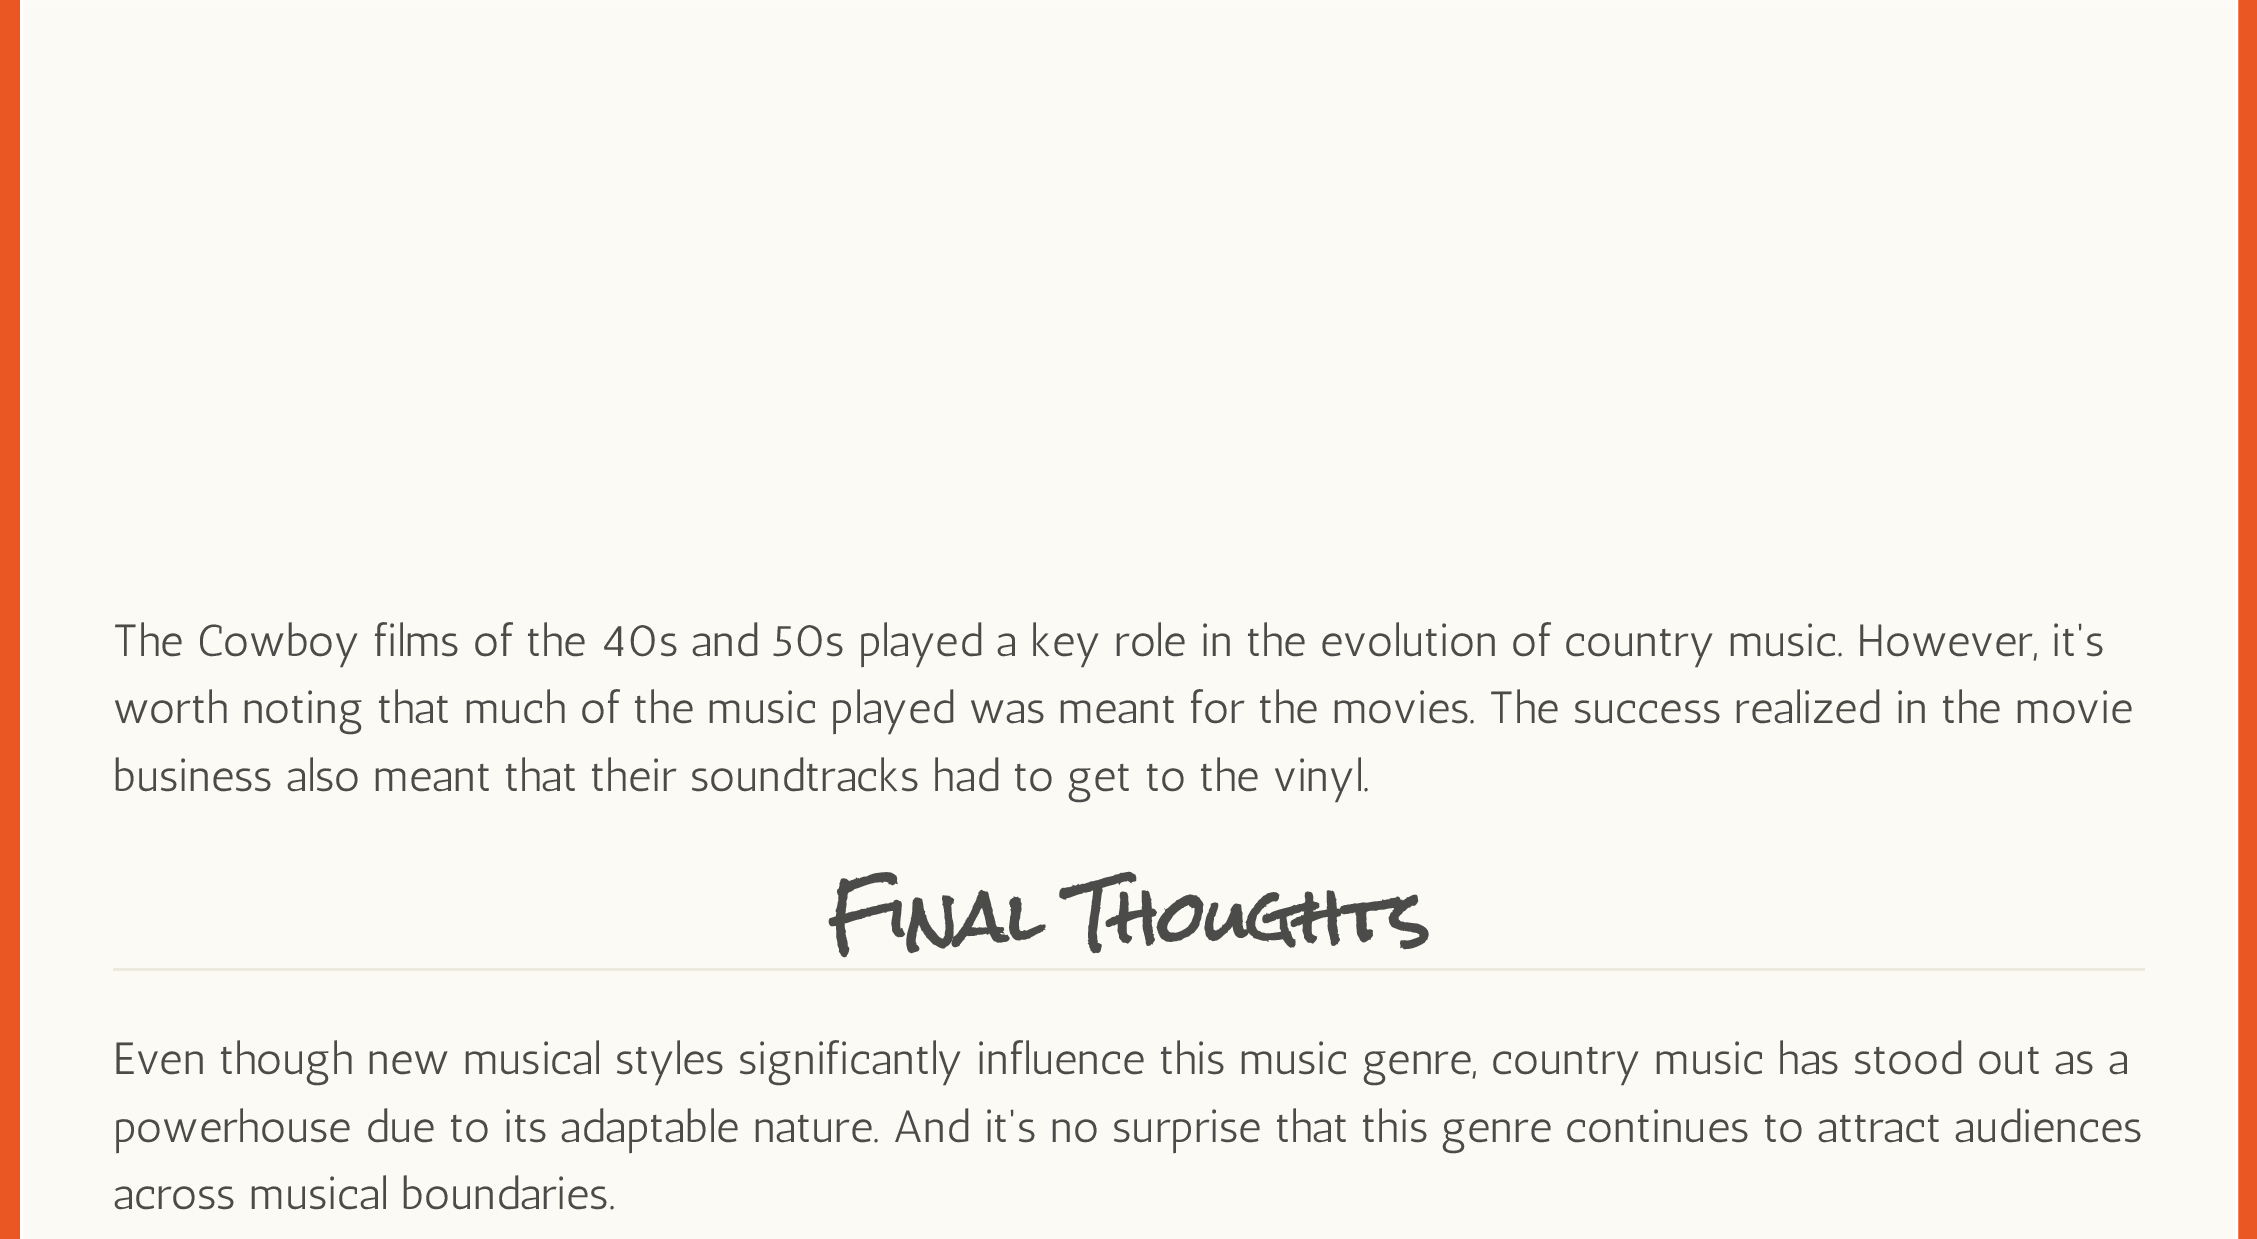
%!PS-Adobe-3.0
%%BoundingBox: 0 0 2257 1239
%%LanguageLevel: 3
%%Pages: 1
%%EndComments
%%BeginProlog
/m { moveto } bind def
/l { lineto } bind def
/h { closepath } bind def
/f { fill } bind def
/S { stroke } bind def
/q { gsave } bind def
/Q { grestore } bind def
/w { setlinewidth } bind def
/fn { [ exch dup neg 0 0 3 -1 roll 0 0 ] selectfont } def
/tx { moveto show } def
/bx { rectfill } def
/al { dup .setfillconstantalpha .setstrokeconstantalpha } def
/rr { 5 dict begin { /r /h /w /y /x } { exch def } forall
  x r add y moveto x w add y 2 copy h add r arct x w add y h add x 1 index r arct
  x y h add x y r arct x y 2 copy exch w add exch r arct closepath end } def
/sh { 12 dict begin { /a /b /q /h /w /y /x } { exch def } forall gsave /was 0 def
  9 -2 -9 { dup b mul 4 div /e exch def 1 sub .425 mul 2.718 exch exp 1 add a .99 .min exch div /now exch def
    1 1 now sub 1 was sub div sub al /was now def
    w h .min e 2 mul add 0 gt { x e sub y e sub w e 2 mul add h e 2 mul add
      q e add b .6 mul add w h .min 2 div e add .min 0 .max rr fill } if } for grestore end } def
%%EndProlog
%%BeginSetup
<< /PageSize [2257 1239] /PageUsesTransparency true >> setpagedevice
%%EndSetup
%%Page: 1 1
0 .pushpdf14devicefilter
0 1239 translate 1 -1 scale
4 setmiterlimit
0.973 0.357 0.141 setrgbcolor
0 0 2257 1239 bx
0 setgray
20 -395 2218 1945 20 125 0.1 sh
0.984 0.98 0.957 setrgbcolor
21.5 -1.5 m 2236.5 -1.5 l 2236.5 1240.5 l 21.5 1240.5 l h q f Q
1 setgray
3 w
S
/Antic-Regular 45 fn
0.294 0.294 0.286 setrgbcolor
(The Cowboy films of the 40s and 50s played a key role in the evolution of country music. However, it's) 113 656 tx
(worth noting that much of the music played was meant for the movies. The success realized in the movie) 113 723 tx
(business also meant that their soundtracks had to get to the vinyl.) 113 791 tx
0.925 0.918 0.871 setrgbcolor
113 968 2032 3 bx
/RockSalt-Bold 67.5 fn
0.294 0.294 0.286 setrgbcolor
(Final Thoughts) 828 944 tx
/Antic-Regular 45 fn
(Even though new musical styles significantly influence this music genre, country music has stood out as a) 113 1074 tx
(powerhouse due to its adaptable nature. And it's no surprise that this genre continues to attract audiences) 113 1142 tx
(across musical boundaries.) 113 1209 tx
.poppdf14devicefilter showpage
%%EOF
